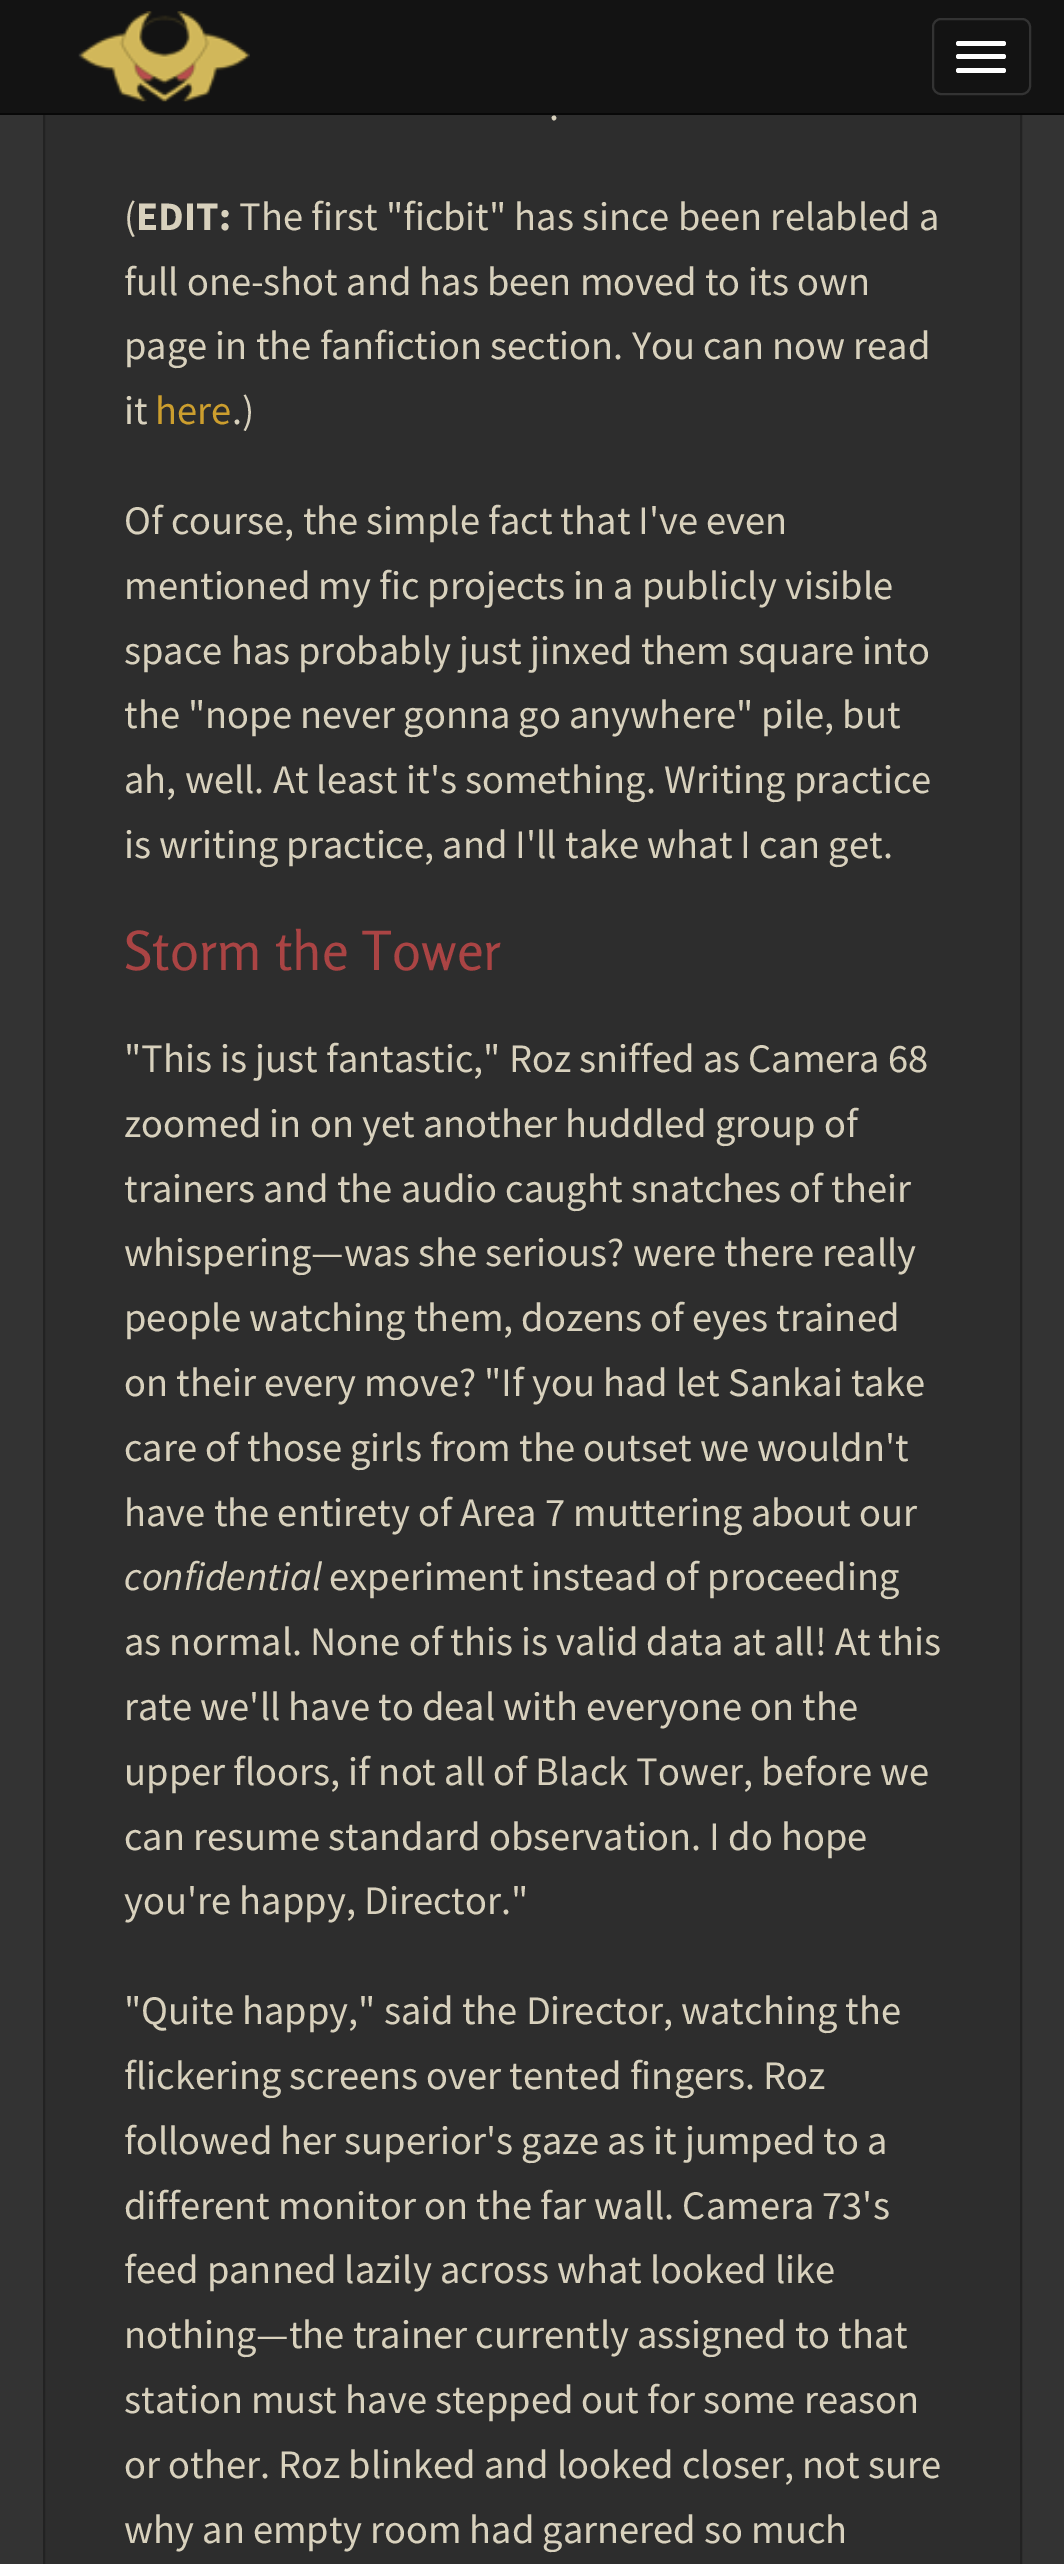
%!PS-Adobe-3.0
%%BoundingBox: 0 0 1064 2564
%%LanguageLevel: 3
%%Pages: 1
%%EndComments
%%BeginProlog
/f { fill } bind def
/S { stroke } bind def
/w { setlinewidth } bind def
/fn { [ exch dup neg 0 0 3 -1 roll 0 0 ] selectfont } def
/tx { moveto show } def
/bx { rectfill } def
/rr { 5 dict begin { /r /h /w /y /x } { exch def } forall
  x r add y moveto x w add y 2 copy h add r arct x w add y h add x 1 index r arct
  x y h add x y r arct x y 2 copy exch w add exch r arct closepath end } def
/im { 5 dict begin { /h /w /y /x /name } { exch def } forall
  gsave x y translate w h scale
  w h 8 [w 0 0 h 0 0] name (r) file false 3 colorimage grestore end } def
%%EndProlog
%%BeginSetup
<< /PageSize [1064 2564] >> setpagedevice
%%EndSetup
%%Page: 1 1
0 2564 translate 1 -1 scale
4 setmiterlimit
0.2 setgray
0 0 1064 2564 bx
0.176 setgray
45 115 975 2449 bx
0.133 setgray
2 w
44 -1 977 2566 rectstroke
0.075 setgray
0 0 1064 113 bx
0.031 setgray
0 113 1064 2 bx
(image0.raw) 78 11 172 91 im
0.2 setgray
933 19 97 75 8 rr S
1 setgray
956 41 50 5 2.5 rr f
956 54 50 5 2.5 rr f
956 68 50 5 2.5 rr f
/SourceSansPro-Regular 40.5 fn
0.847 0.82 0.741 setrgbcolor
(.) 549 120 tx
(\() 124 230 tx
/SourceSansPro-Bold 40.5 fn
(EDIT:) 136 230 tx
/SourceSansPro-Regular 40.5 fn
(The first "ficbit" has since been relabled a) 239 230 tx
(full one-shot and has been moved to its own) 124 295 tx
(page in the fanfiction section. You can now read) 124 359 tx
(it) 124 424 tx
0.8 0.62 0.18 setrgbcolor
(here) 155 424 tx
0.847 0.82 0.741 setrgbcolor
(.\)) 232 424 tx
(Of course, the simple fact that I've even) 124 534 tx
(mentioned my fic projects in a publicly visible) 124 599 tx
(space has probably just jinxed them square into) 124 664 tx
(the "nope never gonna go anywhere" pile, but) 124 728 tx
(ah, well. At least it's something. Writing practice) 124 793 tx
(is writing practice, and I'll take what I can get.) 124 858 tx
/Rosario-Regular 54 fn
0.667 0.267 0.267 setrgbcolor
(Storm the Tower) 124 970 tx
/SourceSansPro-Regular 40.5 fn
0.847 0.82 0.741 setrgbcolor
("This is just fantastic," Roz sniffed as Camera 68) 124 1072 tx
(zoomed in on yet another huddled group of) 124 1137 tx
(trainers and the audio caught snatches of their) 124 1202 tx
(whispering—was she serious? were there really) 124 1266 tx
(people watching them, dozens of eyes trained) 124 1331 tx
(on their every move? "If you had let Sankai take) 124 1396 tx
(care of those girls from the outset we wouldn't) 124 1461 tx
(have the entirety of Area 7 muttering about our) 124 1526 tx
/SourceSansPro-Italic 40.5 fn
(confidential) 124 1590 tx
/SourceSansPro-Regular 40.5 fn
(experiment instead of proceeding) 329 1590 tx
(as normal. None of this is valid data at all! At this) 124 1655 tx
(rate we'll have to deal with everyone on the) 124 1720 tx
(upper floors, if not all of Black Tower, before we) 124 1785 tx
(can resume standard observation. I do hope) 124 1850 tx
(you're happy, Director.") 124 1914 tx
("Quite happy," said the Director, watching the) 124 2024 tx
(flickering screens over tented fingers. Roz) 124 2089 tx
(followed her superior's gaze as it jumped to a) 124 2154 tx
(different monitor on the far wall. Camera 73's) 124 2219 tx
(feed panned lazily across what looked like) 124 2283 tx
(nothing—the trainer currently assigned to that) 124 2348 tx
(station must have stepped out for some reason) 124 2413 tx
(or other. Roz blinked and looked closer, not sure) 124 2478 tx
(why an empty room had garnered so much) 124 2543 tx
showpage
%%EOF
